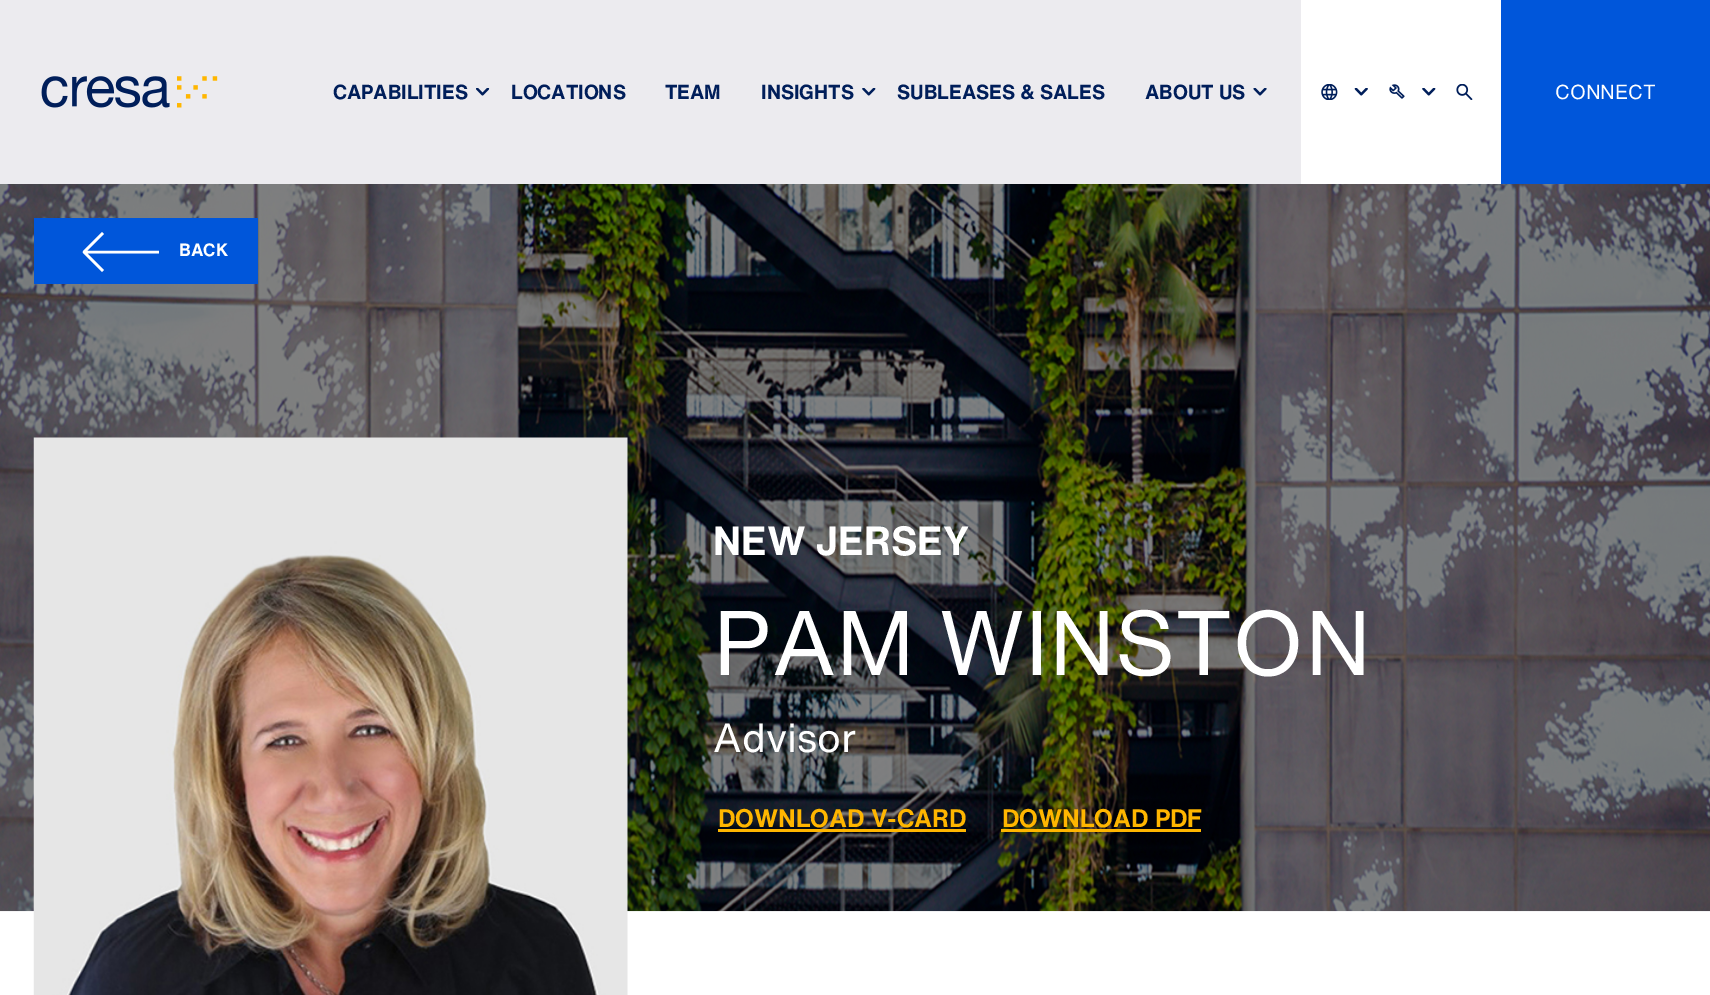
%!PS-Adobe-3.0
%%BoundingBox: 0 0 1710 995
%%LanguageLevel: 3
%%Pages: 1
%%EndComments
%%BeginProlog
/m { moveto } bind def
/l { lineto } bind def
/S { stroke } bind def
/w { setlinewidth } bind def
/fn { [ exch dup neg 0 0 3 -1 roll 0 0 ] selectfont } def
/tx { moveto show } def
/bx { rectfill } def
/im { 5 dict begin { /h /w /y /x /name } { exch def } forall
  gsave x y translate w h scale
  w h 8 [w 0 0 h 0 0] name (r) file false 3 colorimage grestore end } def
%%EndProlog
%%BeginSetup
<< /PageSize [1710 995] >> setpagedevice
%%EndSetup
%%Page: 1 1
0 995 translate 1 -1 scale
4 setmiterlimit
1 setgray
0 0 1710 995 bx
0.925 0.922 0.937 setrgbcolor
0 0 1301 184 bx
(image0.raw) 41 76 177 32 im
/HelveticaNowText-Bold 20 fn
0 0.118 0.353 setrgbcolor
(CAPABILITIES) 333 99 tx
(image1.raw) 476 88 14 8 im
(LOCATIONS) 511 99 tx
(TEAM) 665 99 tx
(INSIGHTS) 761 99 tx
(image2.raw) 862 88 14 8 im
(SUBLEASES & SALES) 897 99 tx
(ABOUT US) 1145 99 tx
(image3.raw) 1253 88 14 8 im
(image4.raw) 1321 84 17 16 im
(image5.raw) 1354 88 14 8 im
(image6.raw) 1389 84 16 15 im
(image7.raw) 1422 88 14 8 im
(image8.raw) 1456 84 17 16 im
0 0.337 0.855 setrgbcolor
1501 0 209 184 bx
/HelveticaNowText-Regular 20 fn
1 setgray
(CONNECT) 1555 99 tx
(image9.raw) 0 184 1710 728 im
0 0.337 0.855 setrgbcolor
34 218 224 66 bx
1 setgray
2.5 w
1 setlinejoin
159 252 m 84 252 l 103 271 l 159 252 m 84 252 l 103 233 l S
/HelveticaNowText-Bold 17.5 fn
(BACK) 179 256 tx
(image10.raw) 33 437 595 558 im
/HelveticaNowText-Bold 40 fn
(NEW JERSEY) 713 555 tx
/HelveticaNowText-Regular 90 fn
(PAM WINSTON) 713 675 tx
/HelveticaNowText-Regular 40 fn
(Advisor) 713 752 tx
/HelveticaNowText-Bold 25 fn
1 0.714 0 setrgbcolor
(DOWNLOAD V-CARD) 718 827 tx
718 829 248 3 bx
(DOWNLOAD PDF) 1002 827 tx
1001 829 200 3 bx
showpage
%%EOF
